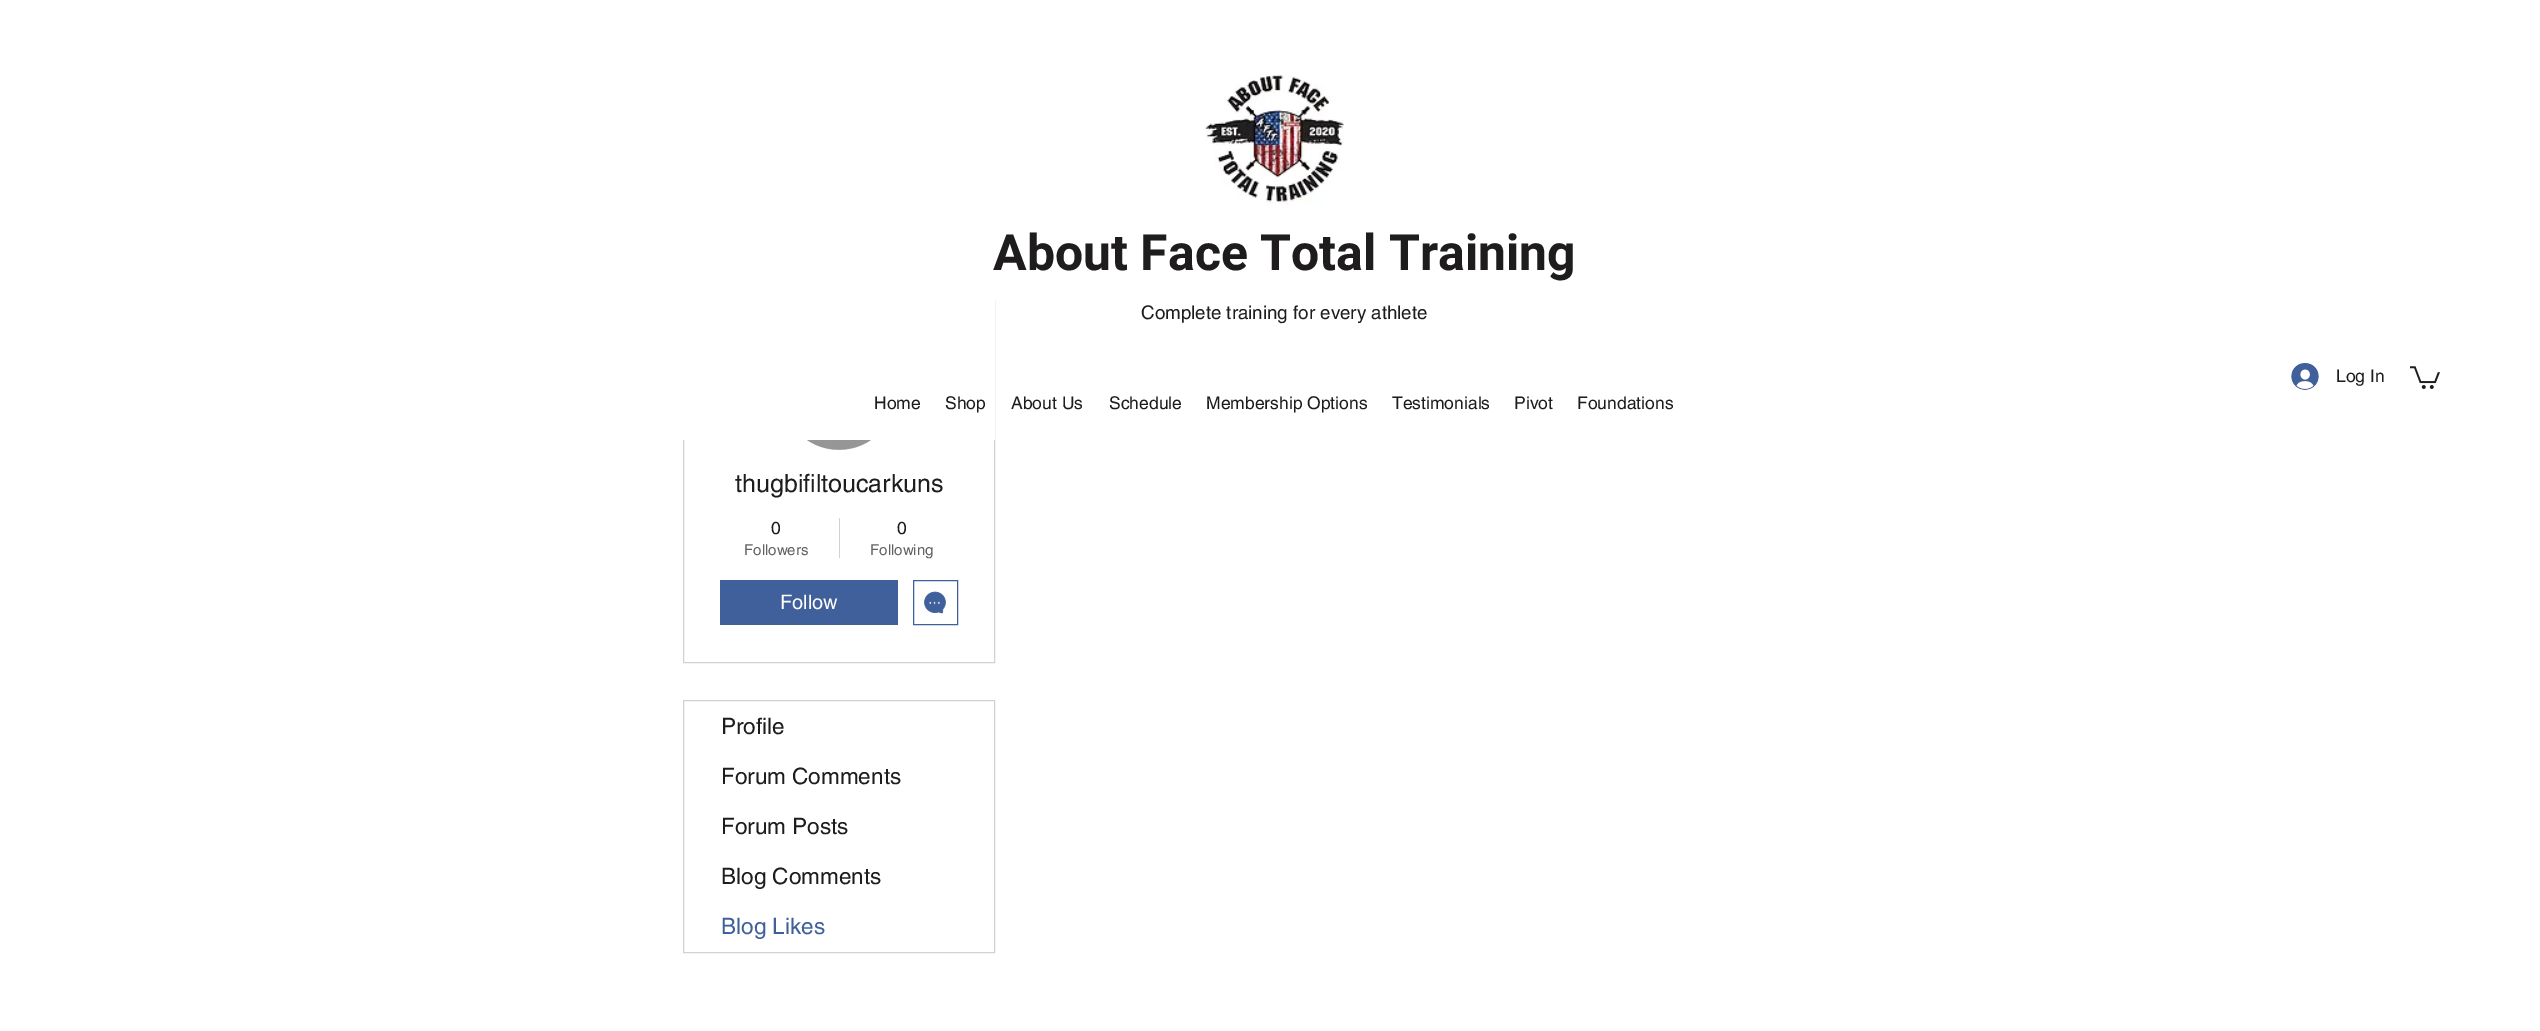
%!PS-Adobe-3.0
%%BoundingBox: 0 0 2540 1031
%%LanguageLevel: 3
%%Pages: 1
%%EndComments
%%BeginProlog
/m { moveto } bind def
/c { curveto } bind def
/h { closepath } bind def
/f { fill } bind def
/fn { [ exch dup neg 0 0 3 -1 roll 0 0 ] selectfont } def
/tx { moveto show } def
/bx { rectfill } def
/ci { newpath 0 360 arc closepath } def
/im { 5 dict begin { /h /w /y /x /name } { exch def } forall
  gsave x y translate w h scale
  w h 8 [w 0 0 h 0 0] name (r) file false 3 colorimage grestore end } def
%%EndProlog
%%BeginSetup
<< /PageSize [2540 1031] >> setpagedevice
%%EndSetup
%%Page: 1 1
0 1031 translate 1 -1 scale
4 setmiterlimit
1 setgray
0 0 2540 1031 bx
0.824 setgray
683.5 300.5 311 362 rectstroke
0.847 setgray
839 394 56 ci f
0.588 setgray
881 431 m 859 456 818 456 796 430 c 816 399 862 399 881 431 c h f
1 setgray
683 300 312 140 bx
(image0.raw) 1205 74 139 131 im
/Roboto-Bold 50 fn
0.118 0.11 0.11 setrgbcolor
(About Face Total Training) 993 270 tx
/helvetica-Regular 18.75 fn
(Complete training for every athlete) 1141 319 tx
(image1.raw) 2291 363 28 27 im
/helvetica-Regular 17.5 fn
(Log In) 2336 382 tx
(image2.raw) 2410 366 30 23 im
(Home) 874 409 tx
(Shop) 945 409 tx
(About Us) 1011 409 tx
(Schedule) 1109 409 tx
(Membership Options) 1206 409 tx
(Testimonials) 1392 409 tx
(Pivot) 1514 409 tx
(Foundations) 1577 409 tx
/helvetica-Regular 25 fn
(thugbifiltoucarkuns) 735 492 tx
/helvetica-Regular 17.5 fn
(0) 771 534 tx
/helvetica-Regular 15 fn
0.384 0.376 0.376 setrgbcolor
(Followers) 744 555 tx
0.824 setgray
839 518 1 40 bx
/helvetica-Regular 17.5 fn
0.118 0.11 0.11 setrgbcolor
(0) 897 534 tx
/helvetica-Regular 15 fn
0.384 0.376 0.376 setrgbcolor
(Following) 870 555 tx
0.247 0.376 0.604 setrgbcolor
720 580 178 45 bx
/helvetica-Regular 20 fn
1 setgray
(Follow) 780 609 tx
0.247 0.376 0.604 setrgbcolor
913.5 580.5 44 44 rectstroke
(image3.raw) 924 591 22 23 im
0.824 setgray
683.5 700.5 311 252 rectstroke
/helvetica-Regular 22.5 fn
0.118 0.11 0.11 setrgbcolor
(Profile) 721 734 tx
(Forum Comments) 721 784 tx
(Forum Posts) 721 834 tx
(Blog Comments) 721 884 tx
0.247 0.376 0.604 setrgbcolor
(Blog Likes) 721 934 tx
showpage
%%EOF
